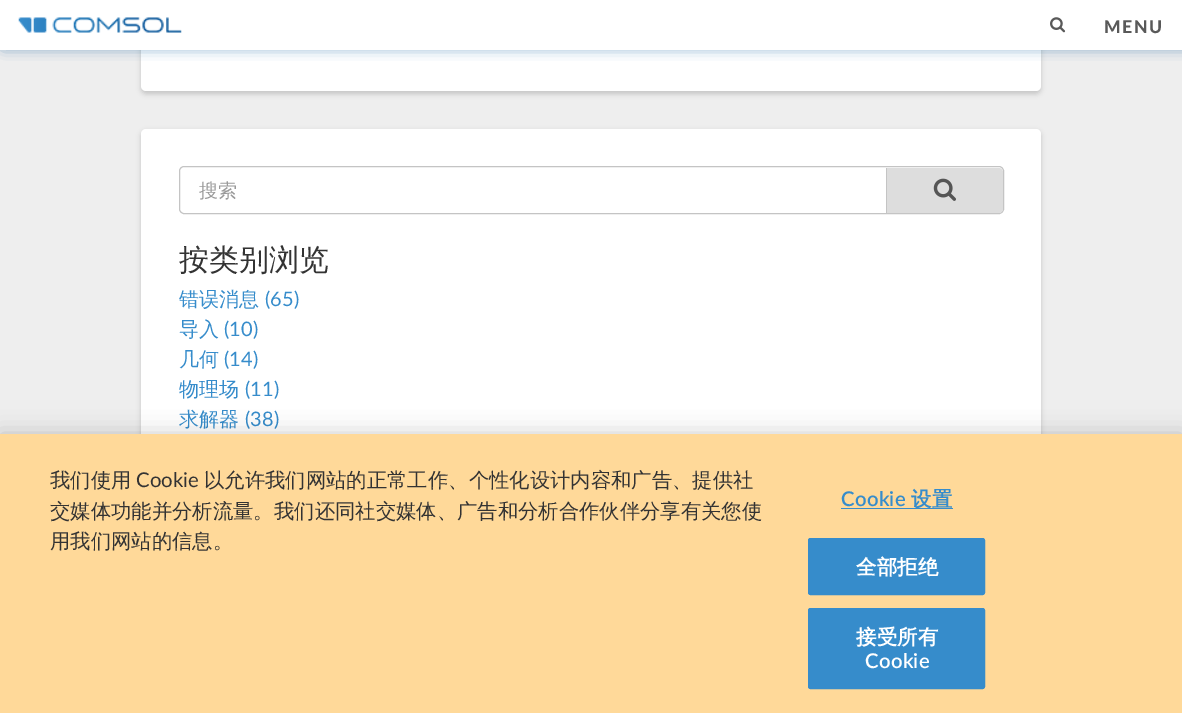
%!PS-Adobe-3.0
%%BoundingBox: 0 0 1182 713
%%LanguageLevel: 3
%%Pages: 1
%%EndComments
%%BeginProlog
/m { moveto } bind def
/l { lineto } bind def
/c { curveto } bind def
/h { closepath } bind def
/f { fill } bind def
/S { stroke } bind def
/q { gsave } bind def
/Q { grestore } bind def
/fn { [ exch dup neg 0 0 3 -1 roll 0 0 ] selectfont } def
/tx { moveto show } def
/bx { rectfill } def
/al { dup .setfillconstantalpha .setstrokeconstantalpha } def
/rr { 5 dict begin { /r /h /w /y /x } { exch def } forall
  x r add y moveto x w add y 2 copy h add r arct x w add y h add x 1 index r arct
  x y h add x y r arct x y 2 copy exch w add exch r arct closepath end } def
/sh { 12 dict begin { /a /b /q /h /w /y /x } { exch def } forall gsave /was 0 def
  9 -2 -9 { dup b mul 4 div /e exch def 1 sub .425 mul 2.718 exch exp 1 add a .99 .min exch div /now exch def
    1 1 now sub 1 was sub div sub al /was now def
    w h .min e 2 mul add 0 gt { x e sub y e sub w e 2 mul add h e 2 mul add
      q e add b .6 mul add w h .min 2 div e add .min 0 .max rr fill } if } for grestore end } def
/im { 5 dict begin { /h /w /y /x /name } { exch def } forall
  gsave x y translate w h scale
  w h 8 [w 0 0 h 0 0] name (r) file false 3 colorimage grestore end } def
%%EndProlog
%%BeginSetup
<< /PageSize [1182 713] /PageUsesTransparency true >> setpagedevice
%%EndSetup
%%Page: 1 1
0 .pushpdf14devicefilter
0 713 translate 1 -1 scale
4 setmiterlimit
0.933 setgray
0 0 1182 713 bx
0.392 setgray
141 -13 900 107 5 2.5 0.3 sh
1 setgray
141 -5 900 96 5 rr f
0 0.333 0.588 setrgbcolor
4 -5 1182 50 0 7 1 sh
1 setgray
0 0 1182 50 bx
(image0.raw) 18 17 164 16 im
(image1.raw) 1050 17 16 16 im
/Lato-Black 17.5 fn
0.349 setgray
1104 33 m 1.5 0 (MENU) ashow
0.392 setgray
141 131 900 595 5 2.5 0.3 sh
1 setgray
141 129 900 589 5 rr f
0.769 setgray
179.5 166.5 824 47 4.5 rr S
/WenQuanYiZenHei-Medium 19 fn
0.6 setgray
(搜索) 199 197 tx
0.867 setgray
886 168 m 999 168 l 1001 168 1003 170 1003 172 c 1003 209 l 1003 211 1001 213 999 213 c 886 213 l h f
0.769 setgray
886 168 1 45 bx
(image2.raw) 933 178 23 23 im
/WenQuanYiZenHei-Medium 30 fn
0.2 setgray
(按类别浏览) 179 270 tx
/WenQuanYiZenHei-Medium 20 fn
0.212 0.549 0.796 setrgbcolor
(错误消息) 179 306 tx
/Lato-Regular 20 fn
(\(65\)) 265 306 tx
/WenQuanYiZenHei-Medium 20 fn
(导入) 179 336 tx
/Lato-Regular 20 fn
(\(10\)) 224 336 tx
/WenQuanYiZenHei-Medium 20 fn
(几何) 179 366 tx
/Lato-Regular 20 fn
(\(14\)) 224 366 tx
/WenQuanYiZenHei-Medium 20 fn
(物理场) 179 396 tx
/Lato-Regular 20 fn
(\(11\)) 245 396 tx
/WenQuanYiZenHei-Medium 20 fn
(求解器) 179 426 tx
/Lato-Regular 20 fn
(\(38\)) 245 426 tx
0 setgray
0 434 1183 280 0 11 0.2 sh
1 0.851 0.6 setrgbcolor
0 434 1182 279 bx
/WenQuanYiZenHei-Medium 20.35 fn
0.2 setgray
(我们使用) 50 487 tx
/Lato-Regular 20.35 fn
(Cookie) 136 487 tx
/WenQuanYiZenHei-Medium 20.35 fn
(以允许我们网站的正常工作、个性化设计内容和广告、提供社) 204 487 tx
(交媒体功能并分析流量。我们还同社交媒体、广告和分析合作伙伴分享有关您使) 50 518 tx
(用我们网站的信息。) 50 548 tx
/Lato-SemiBold 20.35 fn
0.212 0.549 0.796 setrgbcolor
841 506 m 0.25 0 (Cookie) ashow
841 508 112 1 bx
/WenQuanYiZenHei-Bold 20.35 fn
911 506 m 0.25 0 (设置) ashow
808.5 538.5 176 56 2 rr q f Q
S
1 setgray
856 574 m 0.25 0 (全部拒绝) ashow
0.212 0.549 0.796 setrgbcolor
808.5 608.5 176 80 2 rr q f Q
S
1 setgray
856 644 m 0.25 0 (接受所有) ashow
/Lato-SemiBold 20.35 fn
865 668 m 0.25 0 (Cookie) ashow
.poppdf14devicefilter showpage
%%EOF
